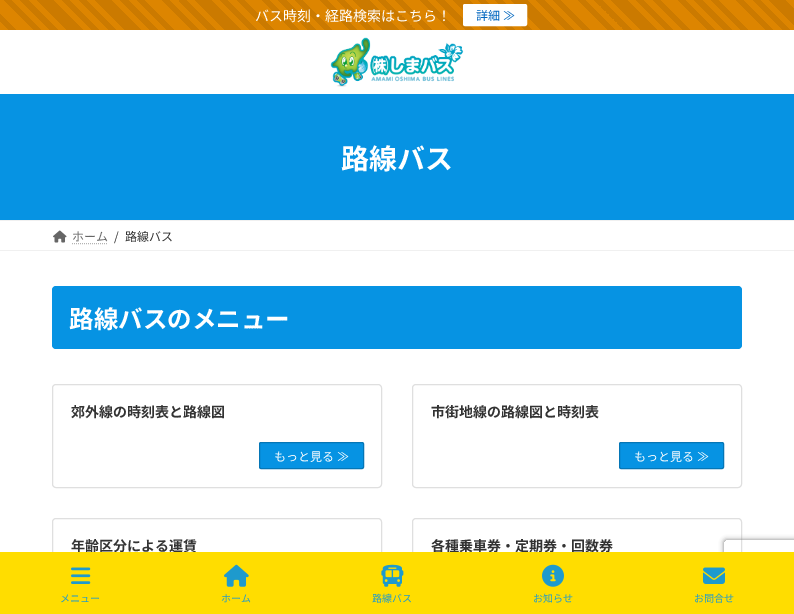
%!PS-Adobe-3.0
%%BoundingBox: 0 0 794 614
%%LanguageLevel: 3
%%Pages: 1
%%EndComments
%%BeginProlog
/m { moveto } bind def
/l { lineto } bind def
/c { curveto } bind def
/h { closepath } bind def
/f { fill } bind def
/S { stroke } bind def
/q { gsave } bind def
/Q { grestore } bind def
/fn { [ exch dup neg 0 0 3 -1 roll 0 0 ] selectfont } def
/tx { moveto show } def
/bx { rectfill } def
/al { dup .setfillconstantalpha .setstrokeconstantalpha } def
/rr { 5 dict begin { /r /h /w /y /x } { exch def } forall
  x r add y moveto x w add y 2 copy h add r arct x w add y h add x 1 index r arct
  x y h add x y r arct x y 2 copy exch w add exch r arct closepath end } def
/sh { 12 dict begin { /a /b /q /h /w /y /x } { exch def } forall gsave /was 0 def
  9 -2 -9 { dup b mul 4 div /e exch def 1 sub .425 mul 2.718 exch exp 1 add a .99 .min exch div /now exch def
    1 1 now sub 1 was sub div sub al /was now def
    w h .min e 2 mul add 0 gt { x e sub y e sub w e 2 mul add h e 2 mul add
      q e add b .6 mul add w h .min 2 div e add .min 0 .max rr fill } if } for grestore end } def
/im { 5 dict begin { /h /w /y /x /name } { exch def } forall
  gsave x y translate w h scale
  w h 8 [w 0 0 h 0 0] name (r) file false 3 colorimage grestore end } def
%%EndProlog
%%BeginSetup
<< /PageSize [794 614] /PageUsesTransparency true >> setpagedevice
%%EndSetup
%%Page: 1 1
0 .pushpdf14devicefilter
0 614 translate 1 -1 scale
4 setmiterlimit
1 setgray
0 0 794 614 bx
q 0 0 m 794 0 l 794 30 l 0 30 l h clip newpath
<< /ShadingType 2 /ColorSpace /DeviceRGB /Coords [191 221 607 -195] /Extend [true true] /Function << /FunctionType 3 /Domain [0 1] /Functions [<< /FunctionType 2 /Domain [0 1] /C0 [0.867 0.522 0] /C1 [0.867 0.522 0] /N 1 >> << /FunctionType 2 /Domain [0 1] /C0 [0.796 0.478 0] /C1 [0.796 0.478 0] /N 1 >> << /FunctionType 2 /Domain [0 1] /C0 [0.867 0.522 0] /C1 [0.867 0.522 0] /N 1 >> << /FunctionType 2 /Domain [0 1] /C0 [0.796 0.478 0] /C1 [0.796 0.478 0] /N 1 >> << /FunctionType 2 /Domain [0 1] /C0 [0.867 0.522 0] /C1 [0.867 0.522 0] /N 1 >> << /FunctionType 2 /Domain [0 1] /C0 [0.796 0.478 0] /C1 [0.796 0.478 0] /N 1 >> << /FunctionType 2 /Domain [0 1] /C0 [0.867 0.522 0] /C1 [0.867 0.522 0] /N 1 >> << /FunctionType 2 /Domain [0 1] /C0 [0.796 0.478 0] /C1 [0.796 0.478 0] /N 1 >> << /FunctionType 2 /Domain [0 1] /C0 [0.867 0.522 0] /C1 [0.867 0.522 0] /N 1 >> << /FunctionType 2 /Domain [0 1] /C0 [0.796 0.478 0] /C1 [0.796 0.478 0] /N 1 >> << /FunctionType 2 /Domain [0 1] /C0 [0.867 0.522 0] /C1 [0.867 0.522 0] /N 1 >> << /FunctionType 2 /Domain [0 1] /C0 [0.796 0.478 0] /C1 [0.796 0.478 0] /N 1 >> << /FunctionType 2 /Domain [0 1] /C0 [0.867 0.522 0] /C1 [0.867 0.522 0] /N 1 >> << /FunctionType 2 /Domain [0 1] /C0 [0.796 0.478 0] /C1 [0.796 0.478 0] /N 1 >> << /FunctionType 2 /Domain [0 1] /C0 [0.867 0.522 0] /C1 [0.867 0.522 0] /N 1 >> << /FunctionType 2 /Domain [0 1] /C0 [0.796 0.478 0] /C1 [0.796 0.478 0] /N 1 >> << /FunctionType 2 /Domain [0 1] /C0 [0.867 0.522 0] /C1 [0.867 0.522 0] /N 1 >> << /FunctionType 2 /Domain [0 1] /C0 [0.796 0.478 0] /C1 [0.796 0.478 0] /N 1 >> << /FunctionType 2 /Domain [0 1] /C0 [0.867 0.522 0] /C1 [0.867 0.522 0] /N 1 >> << /FunctionType 2 /Domain [0 1] /C0 [0.796 0.478 0] /C1 [0.796 0.478 0] /N 1 >> << /FunctionType 2 /Domain [0 1] /C0 [0.867 0.522 0] /C1 [0.867 0.522 0] /N 1 >> << /FunctionType 2 /Domain [0 1] /C0 [0.796 0.478 0] /C1 [0.796 0.478 0] /N 1 >> << /FunctionType 2 /Domain [0 1] /C0 [0.867 0.522 0] /C1 [0.867 0.522 0] /N 1 >> << /FunctionType 2 /Domain [0 1] /C0 [0.796 0.478 0] /C1 [0.796 0.478 0] /N 1 >> << /FunctionType 2 /Domain [0 1] /C0 [0.867 0.522 0] /C1 [0.867 0.522 0] /N 1 >> << /FunctionType 2 /Domain [0 1] /C0 [0.796 0.478 0] /C1 [0.796 0.478 0] /N 1 >> << /FunctionType 2 /Domain [0 1] /C0 [0.867 0.522 0] /C1 [0.867 0.522 0] /N 1 >> << /FunctionType 2 /Domain [0 1] /C0 [0.796 0.478 0] /C1 [0.796 0.478 0] /N 1 >> << /FunctionType 2 /Domain [0 1] /C0 [0.867 0.522 0] /C1 [0.867 0.522 0] /N 1 >> << /FunctionType 2 /Domain [0 1] /C0 [0.796 0.478 0] /C1 [0.796 0.478 0] /N 1 >> << /FunctionType 2 /Domain [0 1] /C0 [0.867 0.522 0] /C1 [0.867 0.522 0] /N 1 >> << /FunctionType 2 /Domain [0 1] /C0 [0.796 0.478 0] /C1 [0.796 0.478 0] /N 1 >> << /FunctionType 2 /Domain [0 1] /C0 [0.867 0.522 0] /C1 [0.867 0.522 0] /N 1 >> << /FunctionType 2 /Domain [0 1] /C0 [0.796 0.478 0] /C1 [0.796 0.478 0] /N 1 >> << /FunctionType 2 /Domain [0 1] /C0 [0.867 0.522 0] /C1 [0.867 0.522 0] /N 1 >> << /FunctionType 2 /Domain [0 1] /C0 [0.796 0.478 0] /C1 [0.796 0.478 0] /N 1 >> << /FunctionType 2 /Domain [0 1] /C0 [0.867 0.522 0] /C1 [0.867 0.522 0] /N 1 >> << /FunctionType 2 /Domain [0 1] /C0 [0.796 0.478 0] /C1 [0.796 0.478 0] /N 1 >> << /FunctionType 2 /Domain [0 1] /C0 [0.867 0.522 0] /C1 [0.867 0.522 0] /N 1 >> << /FunctionType 2 /Domain [0 1] /C0 [0.796 0.478 0] /C1 [0.796 0.478 0] /N 1 >> << /FunctionType 2 /Domain [0 1] /C0 [0.867 0.522 0] /C1 [0.867 0.522 0] /N 1 >> << /FunctionType 2 /Domain [0 1] /C0 [0.796 0.478 0] /C1 [0.796 0.478 0] /N 1 >> << /FunctionType 2 /Domain [0 1] /C0 [0.867 0.522 0] /C1 [0.867 0.522 0] /N 1 >> << /FunctionType 2 /Domain [0 1] /C0 [0.796 0.478 0] /C1 [0.796 0.478 0] /N 1 >> << /FunctionType 2 /Domain [0 1] /C0 [0.867 0.522 0] /C1 [0.867 0.522 0] /N 1 >> << /FunctionType 2 /Domain [0 1] /C0 [0.796 0.478 0] /C1 [0.796 0.478 0] /N 1 >> << /FunctionType 2 /Domain [0 1] /C0 [0.867 0.522 0] /C1 [0.867 0.522 0] /N 1 >> << /FunctionType 2 /Domain [0 1] /C0 [0.796 0.478 0] /C1 [0.796 0.478 0] /N 1 >> << /FunctionType 2 /Domain [0 1] /C0 [0.867 0.522 0] /C1 [0.867 0.522 0] /N 1 >> << /FunctionType 2 /Domain [0 1] /C0 [0.796 0.478 0] /C1 [0.796 0.478 0] /N 1 >> << /FunctionType 2 /Domain [0 1] /C0 [0.867 0.522 0] /C1 [0.867 0.522 0] /N 1 >> << /FunctionType 2 /Domain [0 1] /C0 [0.796 0.478 0] /C1 [0.796 0.478 0] /N 1 >> << /FunctionType 2 /Domain [0 1] /C0 [0.867 0.522 0] /C1 [0.867 0.522 0] /N 1 >> << /FunctionType 2 /Domain [0 1] /C0 [0.796 0.478 0] /C1 [0.796 0.478 0] /N 1 >> << /FunctionType 2 /Domain [0 1] /C0 [0.867 0.522 0] /C1 [0.867 0.522 0] /N 1 >> << /FunctionType 2 /Domain [0 1] /C0 [0.796 0.478 0] /C1 [0.796 0.478 0] /N 1 >> << /FunctionType 2 /Domain [0 1] /C0 [0.867 0.522 0] /C1 [0.867 0.522 0] /N 1 >> << /FunctionType 2 /Domain [0 1] /C0 [0.796 0.478 0] /C1 [0.796 0.478 0] /N 1 >> << /FunctionType 2 /Domain [0 1] /C0 [0.867 0.522 0] /C1 [0.867 0.522 0] /N 1 >> << /FunctionType 2 /Domain [0 1] /C0 [0.796 0.478 0] /C1 [0.796 0.478 0] /N 1 >> << /FunctionType 2 /Domain [0 1] /C0 [0.867 0.522 0] /C1 [0.867 0.522 0] /N 1 >> << /FunctionType 2 /Domain [0 1] /C0 [0.796 0.478 0] /C1 [0.796 0.478 0] /N 1 >> << /FunctionType 2 /Domain [0 1] /C0 [0.867 0.522 0] /C1 [0.867 0.522 0] /N 1 >> << /FunctionType 2 /Domain [0 1] /C0 [0.796 0.478 0] /C1 [0.796 0.478 0] /N 1 >> << /FunctionType 2 /Domain [0 1] /C0 [0.867 0.522 0] /C1 [0.867 0.522 0] /N 1 >> << /FunctionType 2 /Domain [0 1] /C0 [0.796 0.478 0] /C1 [0.796 0.478 0] /N 1 >> << /FunctionType 2 /Domain [0 1] /C0 [0.867 0.522 0] /C1 [0.867 0.522 0] /N 1 >> << /FunctionType 2 /Domain [0 1] /C0 [0.796 0.478 0] /C1 [0.796 0.478 0] /N 1 >> << /FunctionType 2 /Domain [0 1] /C0 [0.867 0.522 0] /C1 [0.867 0.522 0] /N 1 >> << /FunctionType 2 /Domain [0 1] /C0 [0.796 0.478 0] /C1 [0.796 0.478 0] /N 1 >> << /FunctionType 2 /Domain [0 1] /C0 [0.867 0.522 0] /C1 [0.867 0.522 0] /N 1 >> << /FunctionType 2 /Domain [0 1] /C0 [0.796 0.478 0] /C1 [0.796 0.478 0] /N 1 >> << /FunctionType 2 /Domain [0 1] /C0 [0.867 0.522 0] /C1 [0.867 0.522 0] /N 1 >> << /FunctionType 2 /Domain [0 1] /C0 [0.796 0.478 0] /C1 [0.796 0.478 0] /N 1 >> << /FunctionType 2 /Domain [0 1] /C0 [0.867 0.522 0] /C1 [0.867 0.522 0] /N 1 >> << /FunctionType 2 /Domain [0 1] /C0 [0.796 0.478 0] /C1 [0.796 0.478 0] /N 1 >> << /FunctionType 2 /Domain [0 1] /C0 [0.867 0.522 0] /C1 [0.867 0.522 0] /N 1 >> << /FunctionType 2 /Domain [0 1] /C0 [0.796 0.478 0] /C1 [0.796 0.478 0] /N 1 >> << /FunctionType 2 /Domain [0 1] /C0 [0.867 0.522 0] /C1 [0.867 0.522 0] /N 1 >> << /FunctionType 2 /Domain [0 1] /C0 [0.796 0.478 0] /C1 [0.796 0.478 0] /N 1 >> << /FunctionType 2 /Domain [0 1] /C0 [0.867 0.522 0] /C1 [0.867 0.522 0] /N 1 >> << /FunctionType 2 /Domain [0 1] /C0 [0.796 0.478 0] /C1 [0.796 0.478 0] /N 1 >> << /FunctionType 2 /Domain [0 1] /C0 [0.867 0.522 0] /C1 [0.867 0.522 0] /N 1 >> << /FunctionType 2 /Domain [0 1] /C0 [0.796 0.478 0] /C1 [0.796 0.478 0] /N 1 >>] /Bounds [0.01 0.02 0.04 0.05 0.06 0.07 0.08 0.1 0.11 0.12 0.13 0.14 0.15 0.17 0.18 0.19 0.2 0.21 0.23 0.24 0.25 0.26 0.27 0.29 0.3 0.31 0.32 0.33 0.35 0.36 0.37 0.38 0.39 0.4 0.42 0.43 0.44 0.45 0.46 0.48 0.49 0.5 0.51 0.52 0.54 0.55 0.56 0.57 0.58 0.6 0.61 0.62 0.63 0.64 0.65 0.67 0.68 0.69 0.7 0.71 0.73 0.74 0.75 0.76 0.77 0.79 0.8 0.81 0.82 0.83 0.85 0.86 0.87 0.88 0.89 0.9 0.92 0.93 0.94 0.95 0.96 0.98 0.99] /Encode [0 1 0 1 0 1 0 1 0 1 0 1 0 1 0 1 0 1 0 1 0 1 0 1 0 1 0 1 0 1 0 1 0 1 0 1 0 1 0 1 0 1 0 1 0 1 0 1 0 1 0 1 0 1 0 1 0 1 0 1 0 1 0 1 0 1 0 1 0 1 0 1 0 1 0 1 0 1 0 1 0 1 0 1 0 1 0 1 0 1 0 1 0 1 0 1 0 1 0 1 0 1 0 1 0 1 0 1 0 1 0 1 0 1 0 1 0 1 0 1 0 1 0 1 0 1 0 1 0 1 0 1 0 1 0 1 0 1 0 1 0 1 0 1 0 1 0 1 0 1 0 1 0 1 0 1 0 1 0 1 0 1 0 1 0 1 0 1] >> >> shfill Q
/NotoSansJP-Regular 14 fn
(バス時刻・経路検索はこちら！) 255 21 tx
463.5 4.5 63 21 1.5 rr q f Q
S
/NotoSansJP-Regular 12 fn
0 0.4 0.749 setrgbcolor
(詳細 ≫) 476 20 tx
(image0.raw) 330 37 134 50 im
0.024 0.576 0.89 setrgbcolor
0 94 794 126 bx
/NotoSansJP-Bold 28 fn
1 setgray
(路線バス) 341 169 tx
0.941 setgray
0 220 794 1 bx
0 250 794 1 bx
(image1.raw) 53 230 14 13 im
/NotoSansJP-Regular 12 fn
0.4 setgray
(ホーム) 72 241 tx
0.702 setgray
[1 1] 0 setdash
72 243.5 m 108 243.5 l S
0.2 setgray
(/) 114 241 tx
(路線バス) 125 241 tx
0.024 0.576 0.89 setrgbcolor
52 286 690 63 4 rr f
/NotoSansJP-Bold 24.5 fn
1 setgray
(路線バスのメニュー) 69 328 tx
0.875 setgray
[] 0 setdash
52.5 384.5 329 103 3.5 rr S
/NotoSansJP-Bold 14 fn
0.2 setgray
(郊外線の時刻表と路線図) 71 417 tx
0.024 0.576 0.89 setrgbcolor
259.5 442.5 104 26 1.5 rr q f Q
0.02 0.463 0.714 setrgbcolor
S
/NotoSansJP-Regular 12 fn
1 setgray
(もっと見る ≫) 274 461 tx
0.875 setgray
412.5 384.5 329 103 3.5 rr S
/NotoSansJP-Bold 14 fn
0.2 setgray
(市街地線の路線図と時刻表) 431 417 tx
0.024 0.576 0.89 setrgbcolor
619.5 442.5 104 26 1.5 rr q f Q
0.02 0.463 0.714 setrgbcolor
S
/NotoSansJP-Regular 12 fn
1 setgray
(もっと見る ≫) 634 461 tx
0.875 setgray
52.5 518.5 329 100 3.5 rr S
/NotoSansJP-Bold 14 fn
0.2 setgray
(年齢区分による運賃) 71 551 tx
0.875 setgray
412.5 518.5 329 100 3.5 rr S
0.2 setgray
(各種乗車券・定期券・回数券) 431 551 tx
q
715 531 m 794 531 l 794 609 l 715 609 l h 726 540 m 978 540 l 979 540 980 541 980 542 c 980 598 l 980 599 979 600 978 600 c 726 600 l 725 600 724 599 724 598 c 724 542 l 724 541 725 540 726 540 c h eoclip newpath
0.502 setgray
724 540 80 60 2 2.5 1 sh
Q
1 0.867 0 setrgbcolor
0 552 794 62 bx
(image2.raw) 71 567 20 17 im
/NotoSansJP-Regular 10 fn
0.122 0.604 0.8 setrgbcolor
(メニュー) 60 602 tx
(image3.raw) 224 564 25 23 im
(ホーム) 221 602 tx
(image4.raw) 381 564 23 23 im
(路線バス) 372 602 tx
(image5.raw) 542 564 22 23 im
(お知らせ) 533 602 tx
(image6.raw) 703 567 22 17 im
(お問合せ) 694 602 tx
.poppdf14devicefilter showpage
%%EOF
